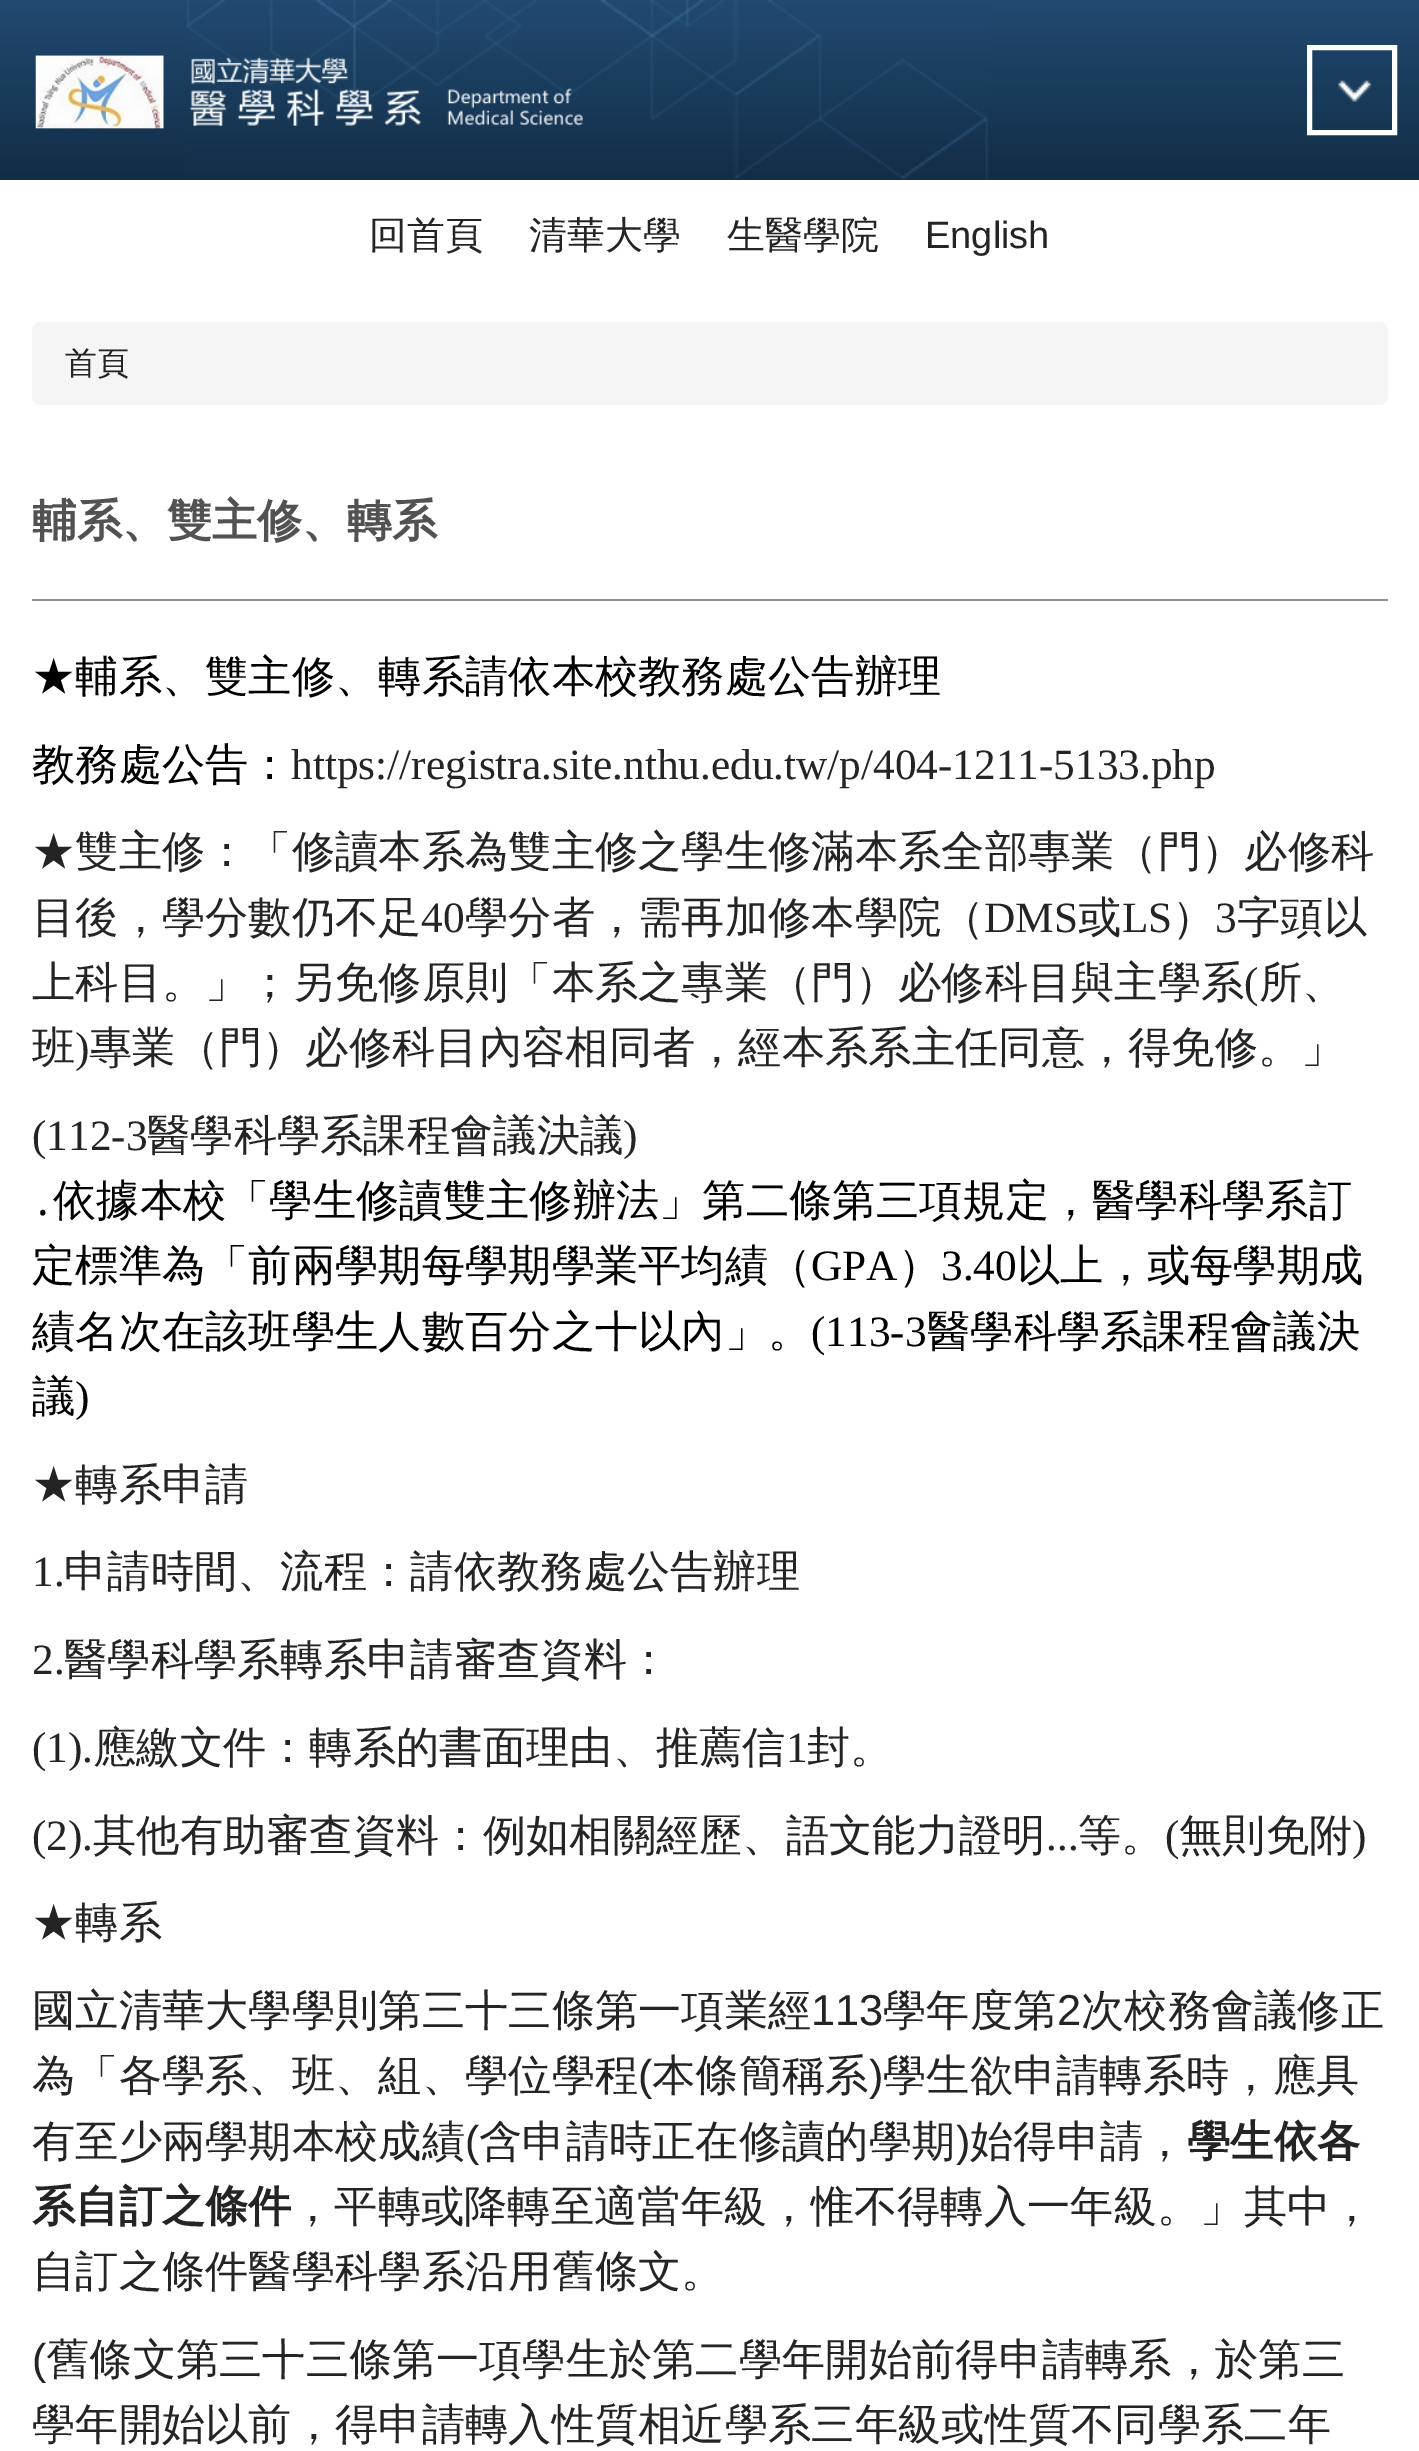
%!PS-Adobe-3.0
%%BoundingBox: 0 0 1419 2451
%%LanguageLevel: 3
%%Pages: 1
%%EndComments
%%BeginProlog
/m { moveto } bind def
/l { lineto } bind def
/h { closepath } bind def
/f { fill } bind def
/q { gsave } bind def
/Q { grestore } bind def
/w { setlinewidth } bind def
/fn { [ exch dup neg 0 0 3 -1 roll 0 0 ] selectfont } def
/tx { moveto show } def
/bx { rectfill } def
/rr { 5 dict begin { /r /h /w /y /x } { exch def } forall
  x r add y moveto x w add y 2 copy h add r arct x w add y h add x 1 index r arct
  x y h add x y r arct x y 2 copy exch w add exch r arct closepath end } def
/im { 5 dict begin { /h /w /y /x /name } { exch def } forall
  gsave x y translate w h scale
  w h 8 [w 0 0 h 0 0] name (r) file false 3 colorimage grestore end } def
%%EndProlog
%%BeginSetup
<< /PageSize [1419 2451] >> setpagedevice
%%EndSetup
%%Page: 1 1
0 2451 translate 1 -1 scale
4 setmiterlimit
1 setgray
0 0 1419 2451 bx
q 0 0 m 1419 0 l 1419 180 l 0 180 l h clip newpath
<< /ShadingType 2 /ColorSpace /DeviceRGB /Coords [710 0 710 180] /Extend [true true] /Function << /FunctionType 2 /Domain [0 1] /C0 [0.129 0.29 0.443] /C1 [0.071 0.176 0.275] /N 1 >> >> shfill Q
(image0.raw) 1338 80 33 22 im
5 w
1309.5 47.5 85 85 rectstroke
(image1.raw) 186 0 802 180 im
(image2.raw) 35 55 548 74 im
/WenQuanYiZenHei-Medium 38 fn
0.141 setgray
(回首頁) 369 248 tx
(清華大學) 529 248 tx
(生醫學院) 727 248 tx
/LiberationSans-Regular 38 fn
(English) 925 248 tx
0.961 setgray
32 322 1356 83 9 rr f
/WenQuanYiZenHei-Medium 32 fn
0.141 setgray
(首頁) 65 374 tx
0.561 0.565 0.569 setrgbcolor
32 599 1356 2 bx
/WenQuanYiZenHei-Bold 45 fn
0.322 setgray
(輔系、雙主修、轉系) 32 536 tx
/WenQuanYiZenHei-Medium 43.3 fn
0 setgray
(★輔系、雙主修、轉系請依本校教務處公告辦理) 32 691 tx
(教務處公告：) 32 779 tx
/LiberationSerif-Regular 43.3 fn
0.141 setgray
(https://registra.site.nthu.edu.tw/p/404-1211-5133.php) 291 779 tx
/WenQuanYiZenHei-Medium 43.3 fn
(★雙主修：「修讀本系為雙主修之學生修滿本系全部專業（門）必修科) 32 866 tx
(目後，學分數仍不足) 32 932 tx
/LiberationSerif-Regular 43.3 fn
(40) 421 932 tx
/WenQuanYiZenHei-Medium 43.3 fn
(學分者，需再加修本學院（) 465 932 tx
/LiberationSerif-Regular 43.3 fn
(DMS) 984 932 tx
/WenQuanYiZenHei-Medium 43.3 fn
(或) 1078 932 tx
/LiberationSerif-Regular 43.3 fn
(LS) 1122 932 tx
/WenQuanYiZenHei-Medium 43.3 fn
(）) 1172 932 tx
/LiberationSerif-Regular 43.3 fn
(3) 1215 932 tx
/WenQuanYiZenHei-Medium 43.3 fn
(字頭以) 1237 932 tx
(上科目。」；另免修原則「本系之專業（門）必修科目與主學系) 32 997 tx
/LiberationSerif-Regular 43.3 fn
(\() 1244 997 tx
/WenQuanYiZenHei-Medium 43.3 fn
(所、) 1259 997 tx
(班) 32 1062 tx
/LiberationSerif-Regular 43.3 fn
(\)) 75 1062 tx
/WenQuanYiZenHei-Medium 43.3 fn
(專業（門）必修科目內容相同者，經本系系主任同意，得免修。」) 89 1062 tx
/LiberationSerif-Regular 43.3 fn
(\(112-3) 32 1150 tx
/WenQuanYiZenHei-Medium 43.3 fn
(醫學科學系課程會議決議) 147 1150 tx
/LiberationSerif-Regular 43.3 fn
(\)) 623 1150 tx
/NotoSans-Regular 43.3 fn
0 setgray
(․) 32 1215 tx
/WenQuanYiZenHei-Medium 43.3 fn
(依據本校「學生修讀雙主修辦法」第二條第三項規定，醫學科學系訂) 53 1215 tx
(定標準為「前兩學期每學期學業平均績（) 32 1280 tx
/LiberationSerif-Regular 43.3 fn
(GPA) 811 1280 tx
/WenQuanYiZenHei-Medium 43.3 fn
(）) 898 1280 tx
/LiberationSerif-Regular 43.3 fn
(3.40) 941 1280 tx
/WenQuanYiZenHei-Medium 43.3 fn
(以上，或每學期成) 1017 1280 tx
(績名次在該班學生人數百分之十以內」。) 32 1346 tx
/LiberationSerif-Regular 43.3 fn
(\(113-3) 811 1346 tx
/WenQuanYiZenHei-Medium 43.3 fn
(醫學科學系課程會議決) 927 1346 tx
(議) 32 1411 tx
/LiberationSerif-Regular 43.3 fn
(\)) 75 1411 tx
/WenQuanYiZenHei-Medium 43.3 fn
0.141 setgray
(★轉系申請) 32 1499 tx
/LiberationSerif-Regular 43.3 fn
(1.) 32 1586 tx
/WenQuanYiZenHei-Medium 43.3 fn
(申請時間、流程：請依教務處公告辦理) 64 1586 tx
/LiberationSerif-Regular 43.3 fn
(2.) 32 1674 tx
/WenQuanYiZenHei-Medium 43.3 fn
(醫學科學系轉系申請審查資料：) 64 1674 tx
/LiberationSerif-Regular 43.3 fn
(\(1\).) 32 1762 tx
/WenQuanYiZenHei-Medium 43.3 fn
(應繳文件：轉系的書面理由、推薦信) 93 1762 tx
/LiberationSerif-Regular 43.3 fn
(1) 786 1762 tx
/WenQuanYiZenHei-Medium 43.3 fn
(封。) 807 1762 tx
/LiberationSerif-Regular 43.3 fn
(\(2\).) 32 1850 tx
/WenQuanYiZenHei-Medium 43.3 fn
(其他有助審查資料：例如相關經歷、語文能力證明) 93 1850 tx
/LiberationSerif-Regular 43.3 fn
(...) 1046 1850 tx
/WenQuanYiZenHei-Medium 43.3 fn
(等。) 1078 1850 tx
/LiberationSerif-Regular 43.3 fn
(\() 1165 1850 tx
/WenQuanYiZenHei-Medium 43.3 fn
(無則免附) 1179 1850 tx
/LiberationSerif-Regular 43.3 fn
(\)) 1352 1850 tx
/WenQuanYiZenHei-Medium 43.3 fn
(★轉系) 32 1937 tx
(國立清華大學學則第三十三條第一項業經) 32 2025 tx
/LiberationSans-Regular 43.3 fn
(113) 811 2025 tx
/WenQuanYiZenHei-Medium 43.3 fn
(學年度第) 883 2025 tx
/LiberationSans-Regular 43.3 fn
(2) 1057 2025 tx
/WenQuanYiZenHei-Medium 43.3 fn
(次校務會議修正) 1081 2025 tx
(為「各學系、班、組、學位學程) 32 2090 tx
/LiberationSans-Regular 43.3 fn
(\() 638 2090 tx
/WenQuanYiZenHei-Medium 43.3 fn
(本條簡稱系) 652 2090 tx
/LiberationSans-Regular 43.3 fn
(\)) 869 2090 tx
/WenQuanYiZenHei-Medium 43.3 fn
(學生欲申請轉系時，應具) 883 2090 tx
(有至少兩學期本校成績) 32 2156 tx
/LiberationSans-Regular 43.3 fn
(\() 465 2156 tx
/WenQuanYiZenHei-Medium 43.3 fn
(含申請時正在修讀的學期) 479 2156 tx
/LiberationSans-Regular 43.3 fn
(\)) 956 2156 tx
/WenQuanYiZenHei-Medium 43.3 fn
(始得申請，) 970 2156 tx
/WenQuanYiZenHei-Bold 43.3 fn
(學生依各) 1187 2156 tx
(系自訂之條件) 32 2221 tx
/WenQuanYiZenHei-Medium 43.3 fn
(，平轉或降轉至適當年級，惟不得轉入一年級。」其中，) 291 2221 tx
(自訂之條件醫學科學系沿用舊條文。) 32 2286 tx
/LiberationSans-Regular 43.3 fn
(\() 32 2374 tx
/WenQuanYiZenHei-Medium 43.3 fn
(舊條文第三十三條第一項學生於第二學年開始前得申請轉系，於第三) 46 2374 tx
(學年開始以前，得申請轉入性質相近學系三年級或性質不同學系二年) 32 2439 tx
showpage
%%EOF
